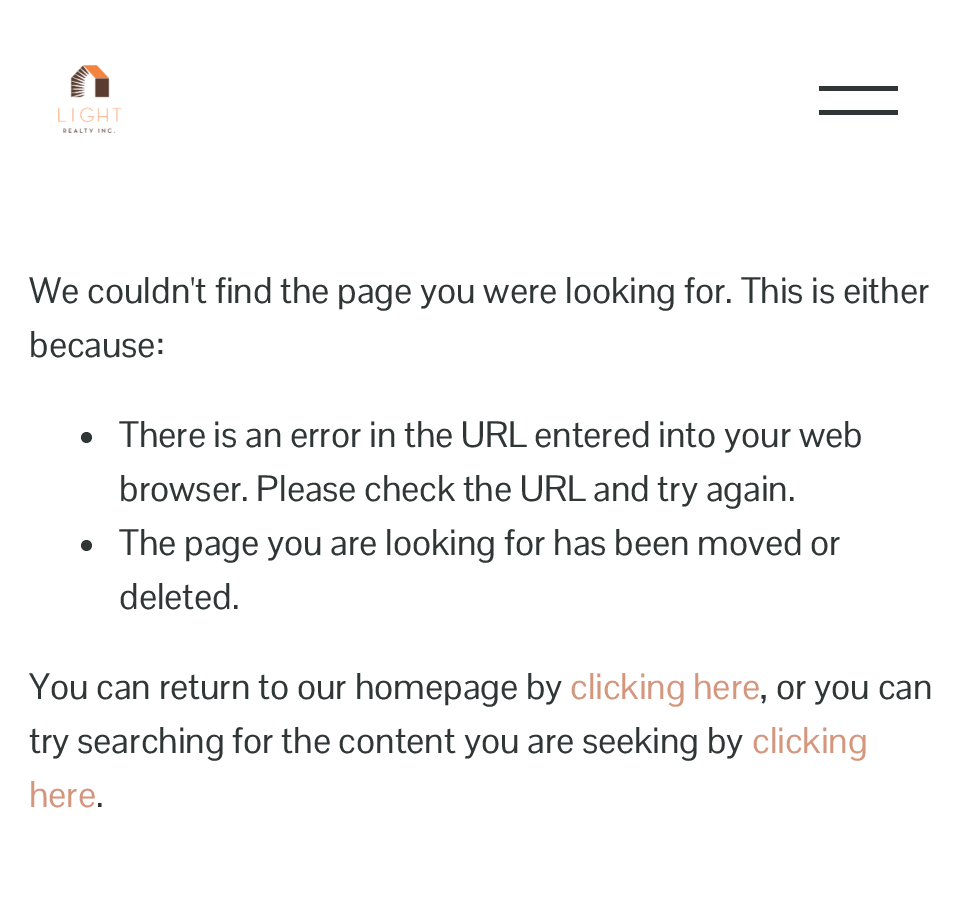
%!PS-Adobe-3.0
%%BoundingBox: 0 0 969 903
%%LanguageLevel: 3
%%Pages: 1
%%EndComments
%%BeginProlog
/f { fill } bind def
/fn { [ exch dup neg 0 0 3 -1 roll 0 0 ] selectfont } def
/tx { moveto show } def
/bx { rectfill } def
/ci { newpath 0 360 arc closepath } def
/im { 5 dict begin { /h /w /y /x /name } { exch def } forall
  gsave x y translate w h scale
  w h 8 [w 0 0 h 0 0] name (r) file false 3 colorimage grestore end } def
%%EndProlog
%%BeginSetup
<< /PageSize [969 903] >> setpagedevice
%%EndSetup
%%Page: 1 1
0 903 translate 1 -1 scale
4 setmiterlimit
1 setgray
0 0 969 903 bx
(image0.raw) 58 65 64 68 im
0.188 0.212 0.212 setrgbcolor
819 86 79 5 bx
819 110 79 5 bx
/PontanoSans-Regular 36 fn
(We couldn't find the page you were looking for. This is either) 29 303 tx
(because:) 29 357 tx
86.5 437.5 5.5 ci f
(There is an error in the URL entered into your web) 119 447 tx
(browser. Please check the URL and try again.) 119 501 tx
86.5 545.5 5.5 ci f
(The page you are looking for has been moved or) 119 555 tx
(deleted.) 119 609 tx
(You can return to our homepage by) 29 699 tx
0.831 0.588 0.49 setrgbcolor
(clicking here) 570 699 tx
0.188 0.212 0.212 setrgbcolor
(, or you can) 760 699 tx
(try searching for the content you are seeking by) 29 753 tx
0.831 0.588 0.49 setrgbcolor
(clicking) 752 753 tx
(here) 29 807 tx
0.188 0.212 0.212 setrgbcolor
(.) 96 807 tx
showpage
%%EOF
